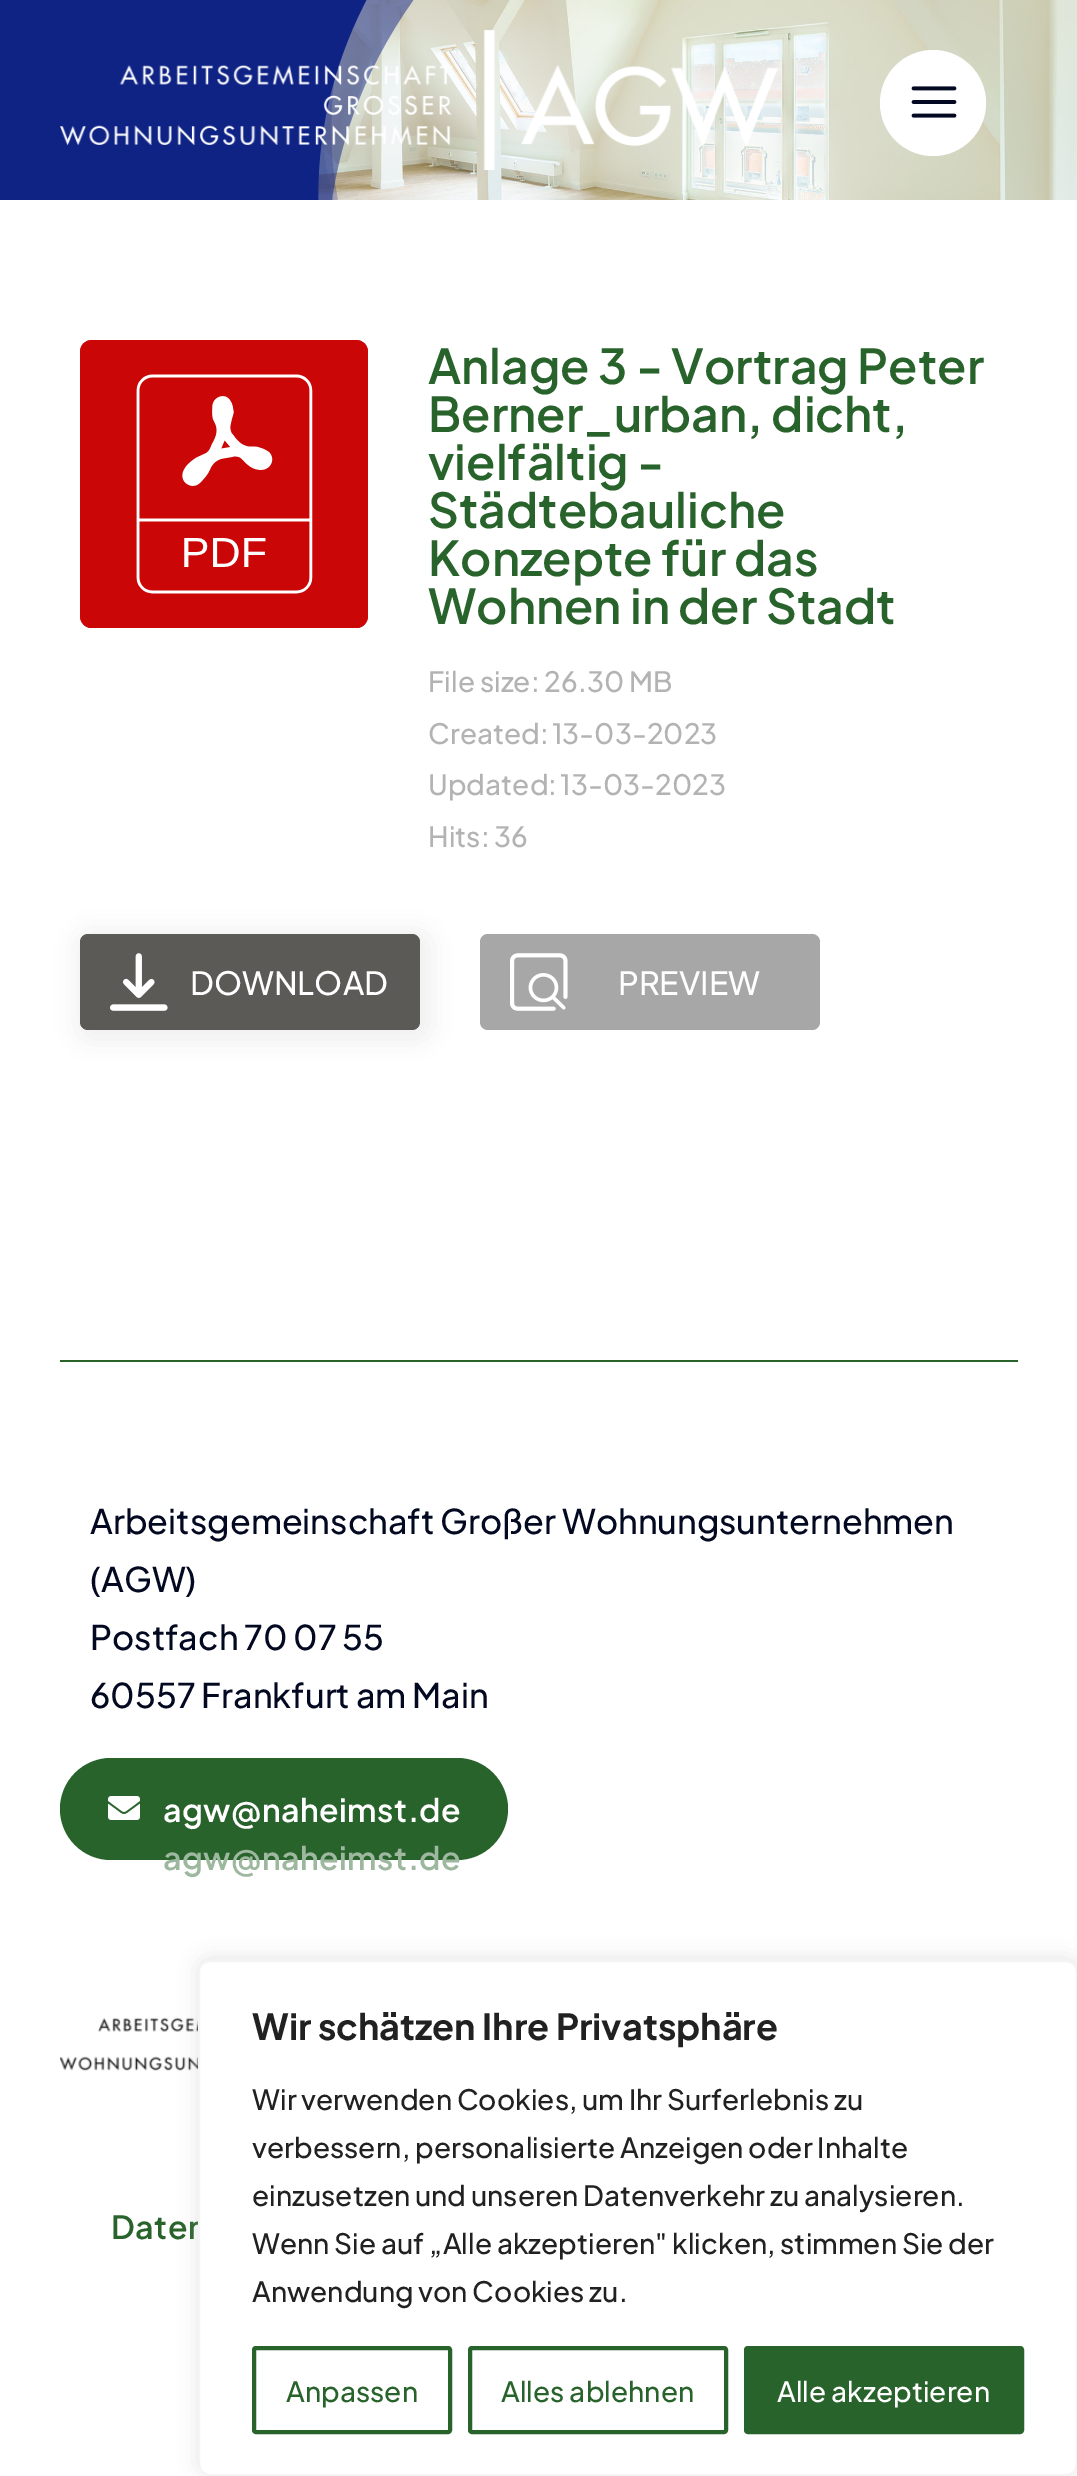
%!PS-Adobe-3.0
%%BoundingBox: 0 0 1077 2476
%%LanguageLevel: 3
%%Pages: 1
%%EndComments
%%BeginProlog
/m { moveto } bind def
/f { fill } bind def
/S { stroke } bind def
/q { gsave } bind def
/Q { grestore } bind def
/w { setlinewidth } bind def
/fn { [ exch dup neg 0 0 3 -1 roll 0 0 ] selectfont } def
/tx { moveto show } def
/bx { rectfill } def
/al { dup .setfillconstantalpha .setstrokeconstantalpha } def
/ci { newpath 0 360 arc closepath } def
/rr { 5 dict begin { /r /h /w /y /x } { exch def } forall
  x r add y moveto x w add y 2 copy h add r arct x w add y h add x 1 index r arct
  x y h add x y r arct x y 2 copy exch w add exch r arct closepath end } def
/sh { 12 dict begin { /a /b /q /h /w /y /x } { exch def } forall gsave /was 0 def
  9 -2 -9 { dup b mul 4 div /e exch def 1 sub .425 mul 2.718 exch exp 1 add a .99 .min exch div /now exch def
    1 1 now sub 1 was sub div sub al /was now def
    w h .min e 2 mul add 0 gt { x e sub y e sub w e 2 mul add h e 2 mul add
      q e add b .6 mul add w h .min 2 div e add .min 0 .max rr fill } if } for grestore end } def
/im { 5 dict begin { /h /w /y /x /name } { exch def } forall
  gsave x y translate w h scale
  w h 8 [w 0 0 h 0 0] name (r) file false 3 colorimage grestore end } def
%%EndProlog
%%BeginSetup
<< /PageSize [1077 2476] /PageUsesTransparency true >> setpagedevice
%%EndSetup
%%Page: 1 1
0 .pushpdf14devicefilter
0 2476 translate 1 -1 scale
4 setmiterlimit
1 setgray
0 0 1077 2476 bx
(image0.raw) 0 0 1077 200 im
(image1.raw) 0 0 414 200 im
(image2.raw) 60 30 718 140 im
933 103 53 ci f
(image3.raw) 911 86 46 32 im
(image4.raw) 80 340 289 288 im
/PlusJakartaSans-SemiBold 48 fn
0.161 0.388 0.173 setrgbcolor
(Anlage 3 - Vortrag Peter) 428 384 tx
(Berner_urban, dicht,) 428 432 tx
(vielfältig -) 428 480 tx
(Städtebauliche) 428 528 tx
(Konzepte für das) 428 576 tx
(Wohnen in der Stadt) 428 624 tx
/PlusJakartaSans-Medium 28 fn
0.702 setgray
(File size: 26.30 MB) 428 692 tx
428 744 m -2 0 32 (Created: 13-03-2023) widthshow
428 795 m -2 0 32 (Updated: 13-03-2023) widthshow
(Hits: 36) 428 847 tx
0.941 setgray
74 928 360 116 18 12 1 sh
0.361 0.353 0.341 setrgbcolor
80 934 340 96 8 rr f
(image5.raw) 110 953 58 58 im
/PlusJakartaSans-Medium 32 fn
1 setgray
(DOWNLOAD) 190 995 tx
0.655 setgray
480 934 340 96 8 rr f
(image6.raw) 510 953 58 58 im
1 setgray
(PREVIEW) 618 995 tx
0.161 0.388 0.173 setrgbcolor
60 1360 958 2 bx
/PlusJakartaSans-Medium 34 fn
0.016 0.035 0.133 setrgbcolor
(Arbeitsgemeinschaft Großer Wohnungsunternehmen) 90 1534 tx
(\(AGW\)) 90 1592 tx
(Postfach 70 07 55) 90 1650 tx
(60557 Frankfurt am Main) 90 1708 tx
0.161 0.388 0.173 setrgbcolor
60 1758 448 102 51 rr f
(image7.raw) 108 1796 32 24 im
/PlusJakartaSans-SemiBold 32 fn
1 setgray
163 1822 m 0.5 0 (agw@naheimst.de) ashow
0.62 0.722 0.627 setrgbcolor
163 1870 m 0.5 0 (agw@naheimst.de) ashow
(image8.raw) 60 2017 138 54 im
0.161 0.388 0.173 setrgbcolor
111 2239 m 0.5 0 (Daten) ashow
0.675 0.671 0.671 setrgbcolor
198 1958 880 516 12 10 0.3 sh
1 setgray
199 1961 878 514 11 rr q f Q
0.957 setgray
2 w
S
/PlusJakartaSans-Bold 36 fn
0.129 setgray
(Wir schätzen Ihre Privatsphäre) 252 2040 tx
/PlusJakartaSans-Medium 28 fn
(Wir verwenden Cookies, um Ihr Surferlebnis zu) 252 2110 tx
(verbessern, personalisierte Anzeigen oder Inhalte) 252 2158 tx
(einzusetzen und unseren Datenverkehr zu analysieren.) 252 2206 tx
(Wenn Sie auf „Alle akzeptieren" klicken, stimmen Sie der) 252 2254 tx
(Anwendung von Cookies zu.) 252 2302 tx
0.161 0.388 0.173 setrgbcolor
4 w
254 2348 196 84 2 rr S
(Anpassen) 286 2402 tx
470 2348 256 84 2 rr S
(Alles ablehnen) 501 2402 tx
746 2348 276 84 2 rr q f Q
S
1 setgray
(Alle akzeptieren) 777 2402 tx
.poppdf14devicefilter showpage
%%EOF
